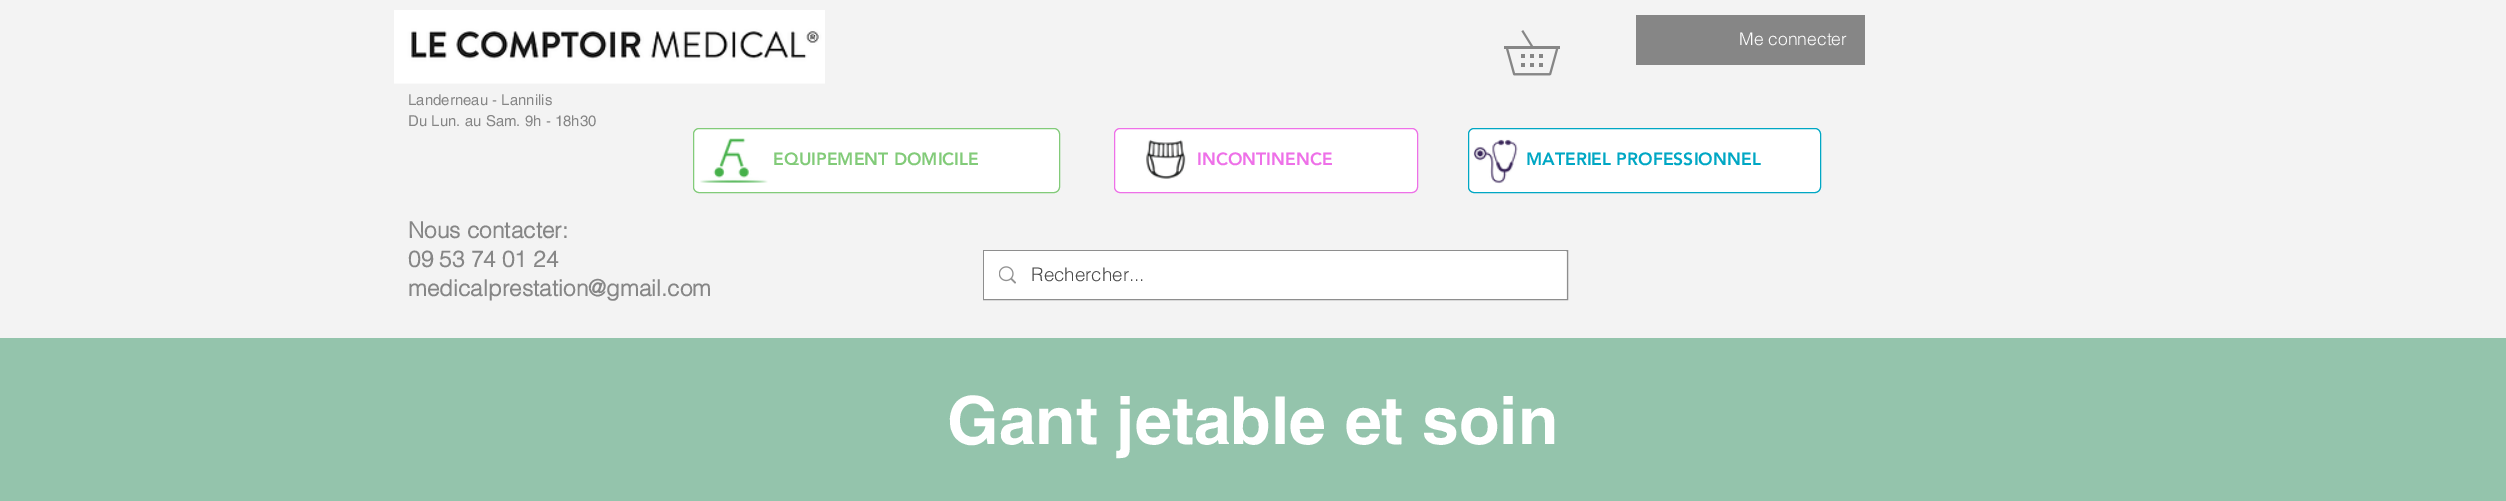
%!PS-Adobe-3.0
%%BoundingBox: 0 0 2506 501
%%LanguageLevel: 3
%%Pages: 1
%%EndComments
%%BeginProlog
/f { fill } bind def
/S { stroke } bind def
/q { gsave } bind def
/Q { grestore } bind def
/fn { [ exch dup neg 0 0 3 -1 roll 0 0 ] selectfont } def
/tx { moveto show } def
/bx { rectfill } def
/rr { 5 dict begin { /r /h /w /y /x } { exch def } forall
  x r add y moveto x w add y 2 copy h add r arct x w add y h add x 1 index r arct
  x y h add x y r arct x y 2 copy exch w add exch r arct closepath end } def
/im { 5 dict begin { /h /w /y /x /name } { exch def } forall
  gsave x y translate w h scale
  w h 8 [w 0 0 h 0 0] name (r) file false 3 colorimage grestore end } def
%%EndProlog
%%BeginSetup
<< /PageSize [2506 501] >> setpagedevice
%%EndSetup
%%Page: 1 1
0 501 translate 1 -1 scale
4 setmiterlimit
0.953 setgray
0 0 2506 501 bx
(image0.raw) 394 10 431 74 im
(image1.raw) 1504 30 56 46 im
0.525 setgray
1636 15 229 50 bx
/helvetica-Light 17.5 fn
1 setgray
(Me connecter) 1739 45 tx
/helvetica-Regular 15 fn
0.525 setgray
(Landerneau - Lannilis) 408 105 tx
(Du Lun. au Sam. 9h - 18h30) 408 126 tx
1 setgray
693.5 128.5 366 64 5.5 rr q f Q
0.51 0.796 0.475 setrgbcolor
S
(image2.raw) 700 138 68 45 im
/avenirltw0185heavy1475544-Black 17.5 fn
(EQUIPEMENT DOMICILE) 773 165 tx
1 setgray
1114.5 128.5 303 64 5.5 rr q f Q
0.933 0.439 0.91 setrgbcolor
S
(image3.raw) 1146 139 40 40 im
(INCONTINENCE) 1197 165 tx
1 setgray
1468.5 128.5 352 64 5.5 rr q f Q
0 0.655 0.769 setrgbcolor
S
(image4.raw) 1473 139 45 45 im
(MATERIEL PROFESSIONNEL) 1526 165 tx
/helvetica-Bold 22.5 fn
0.525 setgray
(Nous contacter:) 408 238 tx
(09 53 74 01 24) 408 267 tx
(medicalprestation@gmail.com) 408 296 tx
0.557 setgray
983.5 250.5 584 49 rectstroke
1 setgray
984 251 582 48 bx
(image5.raw) 999 266 17 18 im
/helvetica-Light 18.75 fn
0.29 setgray
(Rechercher...) 1031 281 tx
0.58 0.769 0.675 setrgbcolor
0 338 2506 163 bx
/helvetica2-Bold 66.25 fn
1 setgray
(Gant jetable et soin) 947 444 tx
showpage
%%EOF
